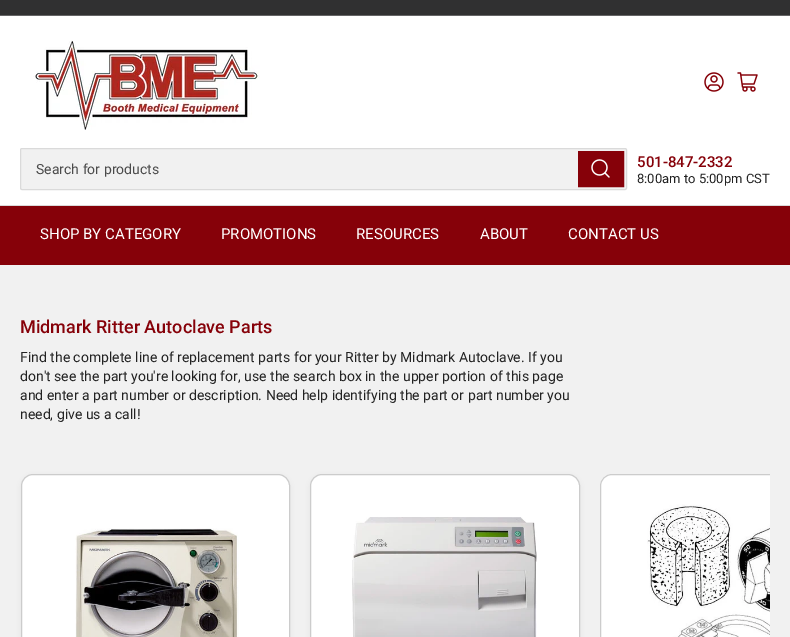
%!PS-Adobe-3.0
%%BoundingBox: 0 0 790 637
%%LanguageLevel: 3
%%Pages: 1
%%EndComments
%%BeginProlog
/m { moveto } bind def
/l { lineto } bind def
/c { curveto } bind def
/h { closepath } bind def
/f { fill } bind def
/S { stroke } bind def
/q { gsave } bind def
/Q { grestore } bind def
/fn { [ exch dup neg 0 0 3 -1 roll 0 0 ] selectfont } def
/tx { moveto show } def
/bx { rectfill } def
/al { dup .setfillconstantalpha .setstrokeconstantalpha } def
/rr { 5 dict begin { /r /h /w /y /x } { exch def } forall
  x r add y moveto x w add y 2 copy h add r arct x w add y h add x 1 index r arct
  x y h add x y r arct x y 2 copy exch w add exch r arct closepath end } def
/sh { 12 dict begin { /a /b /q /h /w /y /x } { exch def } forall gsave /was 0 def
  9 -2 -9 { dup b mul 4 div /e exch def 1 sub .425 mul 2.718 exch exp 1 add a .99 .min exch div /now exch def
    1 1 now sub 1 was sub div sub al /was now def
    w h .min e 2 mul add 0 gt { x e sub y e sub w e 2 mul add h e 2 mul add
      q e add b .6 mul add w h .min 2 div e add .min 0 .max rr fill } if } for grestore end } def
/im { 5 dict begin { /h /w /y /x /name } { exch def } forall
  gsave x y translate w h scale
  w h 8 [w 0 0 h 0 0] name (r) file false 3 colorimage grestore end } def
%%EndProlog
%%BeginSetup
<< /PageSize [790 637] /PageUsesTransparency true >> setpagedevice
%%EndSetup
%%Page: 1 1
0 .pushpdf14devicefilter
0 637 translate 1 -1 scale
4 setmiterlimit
0.945 setgray
0 0 790 637 bx
0.188 0.188 0.192 setrgbcolor
0 0 790 15 bx
0.392 0.392 0.396 setrgbcolor
0 15 790 1 bx
0.855 setgray
0 205 790 1 bx
1 setgray
0 16 790 189 bx
(image0.raw) 33 40 227 90 im
(image1.raw) 704 72 20 20 im
(image2.raw) 737 72 21 20 im
0.945 setgray
20.5 148.5 606 41 1.5 rr q f Q
0.855 setgray
S
/Roboto-Regular 14 fn
0.294 setgray
(Search for products) 36 174 tx
0.525 0.004 0.035 setrgbcolor
578.5 151.5 45 35 rectstroke
579 152 44 34 bx
(image3.raw) 591 159 19 19 im
/Roboto-Medium 15 fn
(501-847-2332) 637 167 tx
/Roboto-Regular 13 fn
0.133 setgray
(8:00am to 5:00pm CST) 637 183 tx
0.525 0.004 0.035 setrgbcolor
0 206 790 59 bx
/Roboto-Regular 15 fn
1 setgray
(SHOP BY CATEGORY) 40 239 tx
(PROMOTIONS) 221 239 tx
(RESOURCES) 356 239 tx
(ABOUT) 480 239 tx
(CONTACT US) 568 239 tx
/Roboto-Medium 18 fn
0.525 0.004 0.035 setrgbcolor
(Midmark Ritter Autoclave Parts) 20 333 tx
/Roboto-Regular 14 fn
0.133 setgray
(Find the complete line of replacement parts for your Ritter by Midmark Autoclave. If you) 20 362 tx
(don't see the part you're looking for, use the search box in the upper portion of this page) 20 381 tx
(and enter a part number or description. Need help identifying the part or part number you) 20 400 tx
(need, give us a call!) 20 419 tx
0 setgray
21 476 269 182 12 3 0.05 sh
1 setgray
21.5 474.5 268 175 11.5 rr q f Q
0.8 setgray
S
(image4.raw) 75 528 164 109 im
0 setgray
310 476 270 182 12 3 0.05 sh
1 setgray
310.5 474.5 269 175 11.5 rr q f Q
0.8 setgray
S
(image5.raw) 352 517 185 120 im
1 setgray
612 474 m 770 474 l 770 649 l 612 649 l 605.5 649 600 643.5 600 637 c 600 486 l 600 479.5 605.5 474 612 474 c h f
q
20 473 750 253 rectclip
0.8 setgray
600.5 474.5 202 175 11.5 rr S
Q
(image6.raw) 647 504 123 133 im
.poppdf14devicefilter showpage
%%EOF
